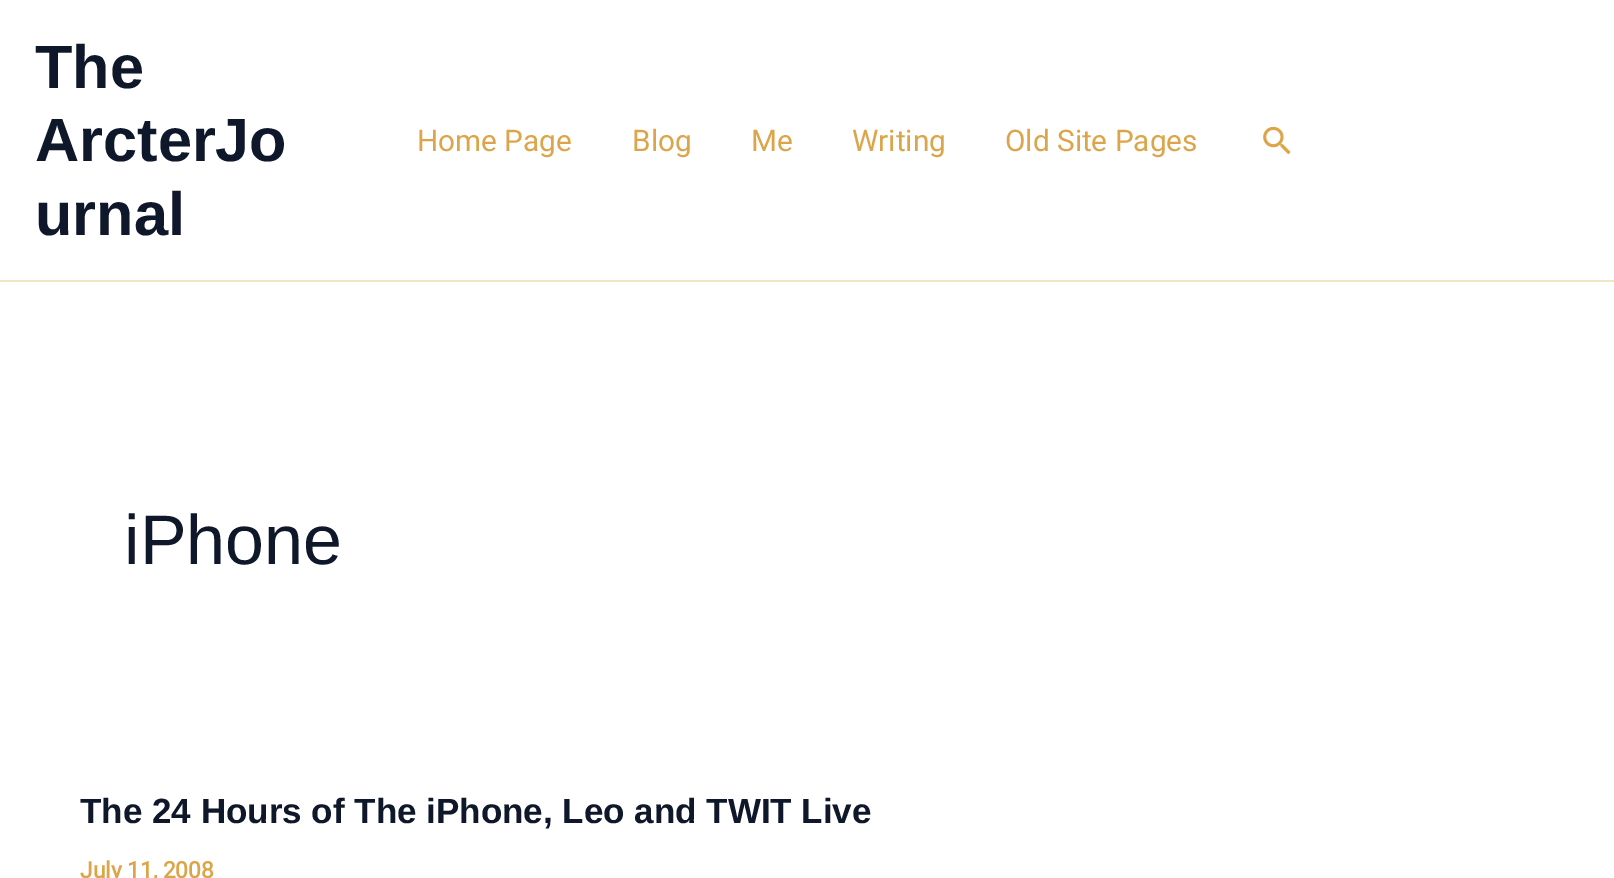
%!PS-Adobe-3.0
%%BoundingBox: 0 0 1614 878
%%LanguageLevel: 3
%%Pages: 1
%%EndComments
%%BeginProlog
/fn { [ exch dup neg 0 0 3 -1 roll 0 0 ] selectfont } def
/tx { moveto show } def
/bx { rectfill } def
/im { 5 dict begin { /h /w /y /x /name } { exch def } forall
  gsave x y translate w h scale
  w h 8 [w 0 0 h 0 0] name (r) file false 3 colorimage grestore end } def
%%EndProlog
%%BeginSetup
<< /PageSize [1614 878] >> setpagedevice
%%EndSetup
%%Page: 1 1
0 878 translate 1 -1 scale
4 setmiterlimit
1 setgray
0 0 1614 878 bx
0.941 0.902 0.773 setrgbcolor
0 280 1614 2 bx
/LiberationSans-Bold 61.25 fn
0.059 0.09 0.165 setrgbcolor
(The) 35 88 tx
(ArcterJo) 35 161 tx
(urnal) 35 235 tx
/Roboto-Regular 29.75 fn
0.863 0.647 0.29 setrgbcolor
(Home Page) 417 151 tx
(Blog) 632 151 tx
(Me) 751 151 tx
(Writing) 852 151 tx
(Old Site Pages) 1005 151 tx
(image0.raw) 1263 126 28 29 im
/LiberationSans-Regular 70 fn
0.059 0.09 0.165 setrgbcolor
(iPhone) 124 564 tx
/LiberationSans-Bold 35 fn
(The 24 Hours of The iPhone, Leo and TWIT Live) 80 823 tx
/Roboto-Bold 22.75 fn
0.863 0.647 0.29 setrgbcolor
(July 11, 2008) 80 878 tx
showpage
%%EOF
